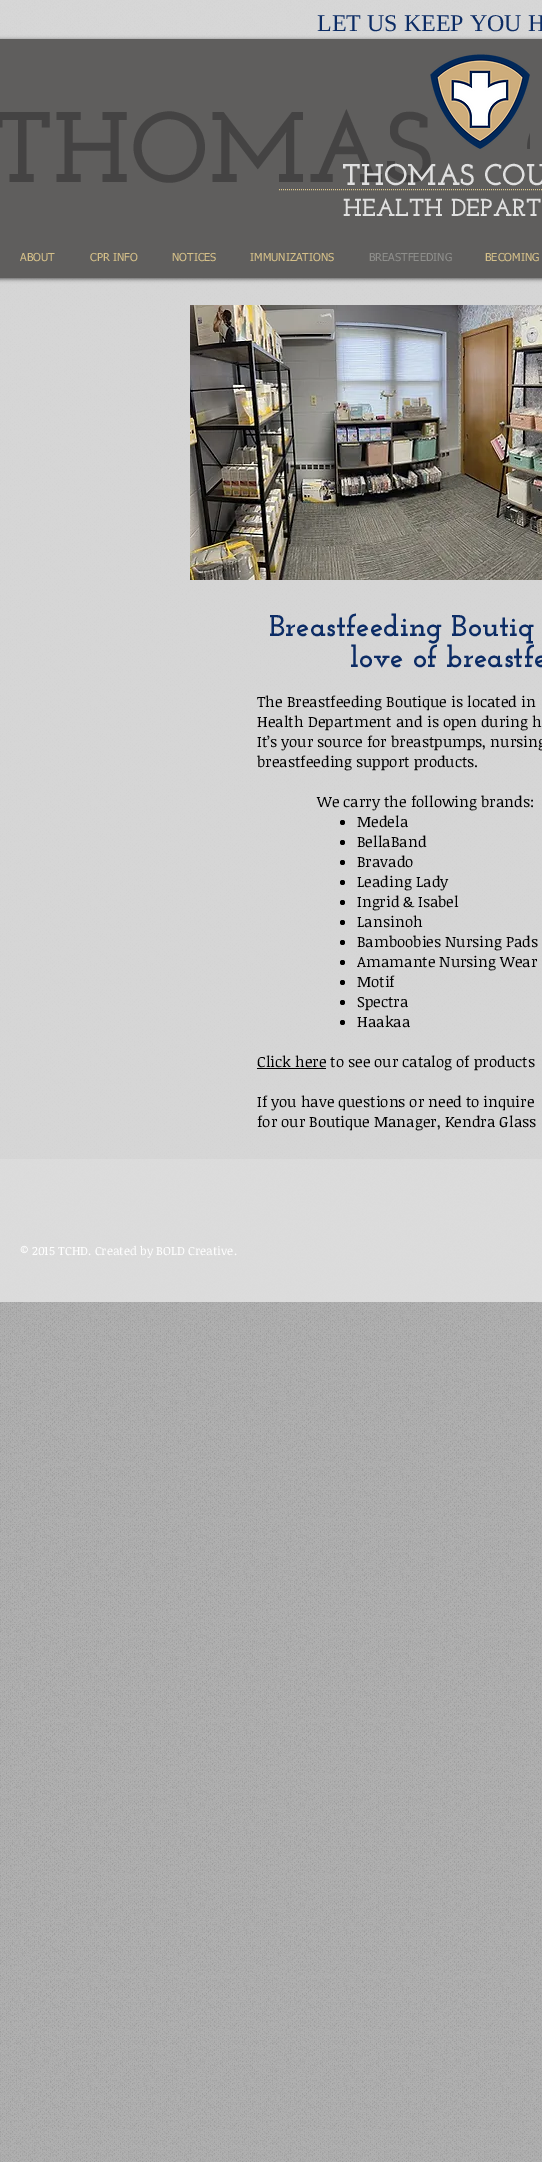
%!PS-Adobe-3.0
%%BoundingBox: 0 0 542 2162
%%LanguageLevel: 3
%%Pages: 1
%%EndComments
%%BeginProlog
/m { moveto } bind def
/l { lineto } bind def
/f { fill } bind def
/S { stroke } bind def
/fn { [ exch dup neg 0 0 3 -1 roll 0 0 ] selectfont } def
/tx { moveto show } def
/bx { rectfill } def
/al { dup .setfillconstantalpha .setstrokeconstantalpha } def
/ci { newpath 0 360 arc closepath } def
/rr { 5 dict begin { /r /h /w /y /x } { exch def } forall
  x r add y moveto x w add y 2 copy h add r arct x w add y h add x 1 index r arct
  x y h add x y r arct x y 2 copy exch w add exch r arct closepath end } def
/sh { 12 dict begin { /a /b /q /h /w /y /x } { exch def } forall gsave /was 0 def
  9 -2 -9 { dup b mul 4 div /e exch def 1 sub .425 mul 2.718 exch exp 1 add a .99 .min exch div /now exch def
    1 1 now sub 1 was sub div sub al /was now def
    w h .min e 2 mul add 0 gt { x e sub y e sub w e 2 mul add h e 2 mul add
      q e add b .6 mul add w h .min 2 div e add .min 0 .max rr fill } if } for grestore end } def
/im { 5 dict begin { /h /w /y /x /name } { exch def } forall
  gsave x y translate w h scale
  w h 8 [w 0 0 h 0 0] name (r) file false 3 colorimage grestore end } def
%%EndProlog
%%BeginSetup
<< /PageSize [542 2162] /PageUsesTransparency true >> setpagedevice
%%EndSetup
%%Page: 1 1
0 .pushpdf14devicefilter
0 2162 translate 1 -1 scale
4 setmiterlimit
0.69 setgray
0 0 542 2162 bx
(image0.raw) 0 0 542 2162 im
0.81 al
0.878 setgray
0 0 542 39 bx
/LiberationSerif-Regular 24 fn
1 al
0.047 0.173 0.396 setrgbcolor
(LET US KEEP YOU H) 317 31 tx
0.8 al
0.878 setgray
0 278 542 881 bx
1 al
0 setgray
-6 40 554 239 0 2 0.6 sh
0.373 0.369 0.365 setrgbcolor
0 39 542 239 bx
/JosefinSlab-Bold 100 fn
0.267 0.263 0.263 setrgbcolor
(THOMAS) -9 182 tx
(image1.raw) 430 54 100 95 im
/JosefinSlab-Bold 30 fn
0.878 setgray
(THOMAS COU) 342 185 tx
/JosefinSlab-Bold 24.5 fn
(HEALTH DEPART) 343 216 tx
0.859 0.776 0.549 setrgbcolor
[1 1] 0 setdash
279 189.5 m 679 189.5 l S
/tahoma-Regular 11 fn
0.835 0.753 0.537 setrgbcolor
(ABOUT) 20 261 tx
(CPR INFO) 90 261 tx
(NOTICES) 172 261 tx
(IMMUNIZATIONS) 250 261 tx
0.557 0.557 0.545 setrgbcolor
(BREASTFEEDING) 369 261 tx
0.835 0.753 0.537 setrgbcolor
(BECOMING) 485 261 tx
(image2.raw) 190 305 352 275 im
/JosefinSlab-Bold 30 fn
0.047 0.173 0.396 setrgbcolor
(Breastfeeding Boutiq) 269 636 tx
(love of breastfe) 350 667 tx
/NoticiaText-Regular 15 fn
0 setgray
(The Breastfeeding Boutique is located in) 257 707 tx
(Health Department and is open during h) 257 727 tx
(It’s your source for breastpumps, nursing) 257 747 tx
(breastfeeding support products.) 257 767 tx
(We carry the following brands:) 317 807 tx
342.5 822.5 2.5 ci f
(Medela) 357 827 tx
342.5 842.5 2.5 ci f
(BellaBand) 357 847 tx
342.5 862.5 2.5 ci f
(Bravado) 357 867 tx
342.5 882.5 2.5 ci f
(Leading Lady) 357 887 tx
342.5 902.5 2.5 ci f
(Ingrid & Isabel) 357 907 tx
342.5 922.5 2.5 ci f
(Lansinoh) 357 927 tx
342.5 942.5 2.5 ci f
(Bamboobies Nursing Pads) 357 947 tx
342.5 962.5 2.5 ci f
(Amamante Nursing Wear) 357 967 tx
342.5 982.5 2.5 ci f
(Motif) 357 987 tx
342.5 1002.5 2.5 ci f
(Spectra) 357 1007 tx
342.5 1022.5 2.5 ci f
(Haakaa) 357 1027 tx
257 1068 69 1 bx
(Click here to see our catalog of products) 257 1067 tx
(If you have questions or need to inquire) 257 1107 tx
(for our Boutique Manager, Kendra Glass) 257 1127 tx
0.91 al
0.878 setgray
0 1159 542 143 bx
/NoticiaText-Regular 12 fn
1 al
1 setgray
(© 2015 TCHD. Created by BOLD Creative.) 20 1255 tx
.poppdf14devicefilter showpage
%%EOF
